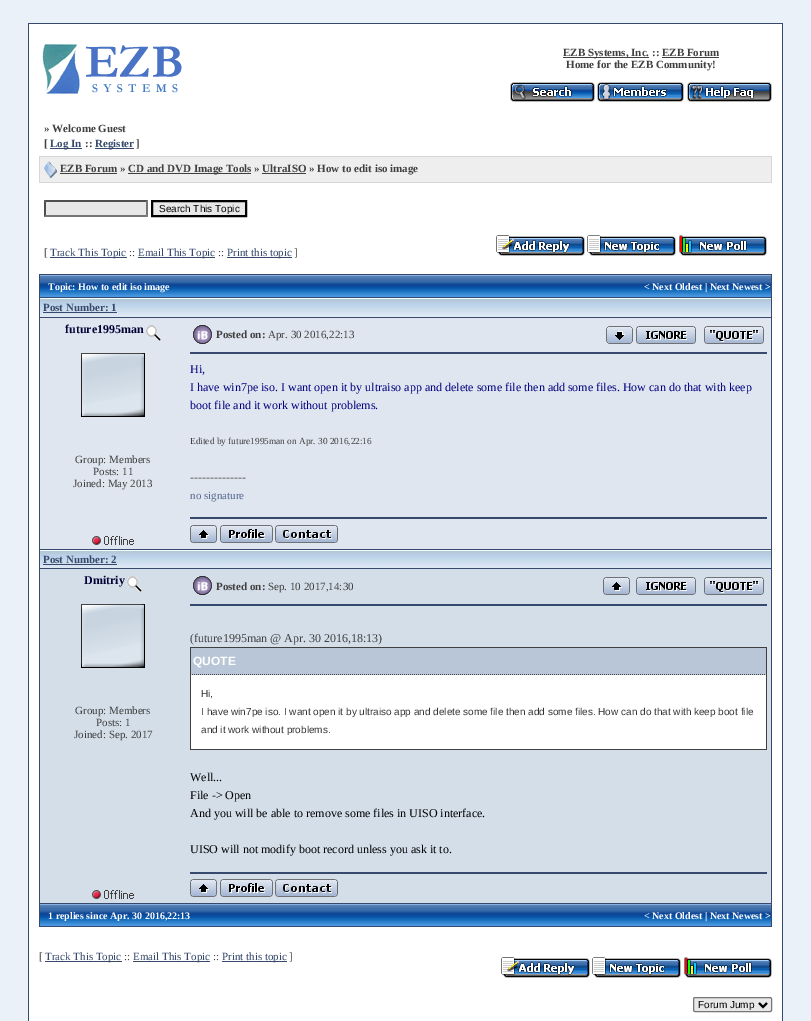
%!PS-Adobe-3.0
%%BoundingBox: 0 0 811 1021
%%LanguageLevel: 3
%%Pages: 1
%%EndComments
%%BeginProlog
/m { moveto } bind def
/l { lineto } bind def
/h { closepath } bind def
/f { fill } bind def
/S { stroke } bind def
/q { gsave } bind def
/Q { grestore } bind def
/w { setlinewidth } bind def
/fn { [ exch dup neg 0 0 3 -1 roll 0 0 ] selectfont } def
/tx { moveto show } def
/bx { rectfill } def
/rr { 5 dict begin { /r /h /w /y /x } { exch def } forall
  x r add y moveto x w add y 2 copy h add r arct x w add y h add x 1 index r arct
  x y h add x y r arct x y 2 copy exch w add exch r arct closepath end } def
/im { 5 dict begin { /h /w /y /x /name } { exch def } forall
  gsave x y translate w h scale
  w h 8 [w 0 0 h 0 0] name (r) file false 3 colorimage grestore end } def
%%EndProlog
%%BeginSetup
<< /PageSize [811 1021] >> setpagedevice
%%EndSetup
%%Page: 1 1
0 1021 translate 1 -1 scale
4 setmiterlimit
0.922 0.945 0.976 setrgbcolor
0 0 811 1021 bx
0.216 0.286 0.427 setrgbcolor
28 23 755 998 bx
1 setgray
29 24 753 997 bx
(image0.raw) 42 44 140 50 im
0.251 setgray
563 57 86 1 bx
/LiberationSerif-Bold 11 fn
(EZB Systems, Inc. :: EZB Forum) 563 56 tx
662 57 57 1 bx
(Home for the EZB Community!) 566 68 tx
(image1.raw) 510 82 85 20 im
(image2.raw) 597 82 87 20 im
(image3.raw) 687 82 85 20 im
(» Welcome Guest) 44 132 tx
([) 44 147 tx
0.216 0.286 0.427 setrgbcolor
50 148 32 1 bx
(Log In) 50 147 tx
0.251 setgray
(::) 85 147 tx
0.216 0.286 0.427 setrgbcolor
95 148 39 1 bx
(Register) 95 147 tx
0.251 setgray
(]) 136 147 tx
0.843 setgray
39 156 733 27 bx
0.933 setgray
40 157 731 25 bx
(image4.raw) 44 161 13 17 im
0.251 setgray
(EZB Forum ») 60 172 tx
60 173 57 1 bx
128 173 123 1 bx
(CD and DVD Image Tools » UltraISO » How to edit iso image) 128 172 tx
262 173 44 1 bx
0.91 setgray
44 200 104 17 bx
0.31 setgray
44 200 m 148 200 l 146 202 l 46 202 l h f
0.463 setgray
148 200 m 148 217 l 146 215 l 146 202 l h f
148 217 m 44 217 l 46 215 l 146 215 l h f
0.31 setgray
44 217 m 44 200 l 46 202 l 46 215 l h f
0.91 setgray
152 201 m 246 201 l 246 216 l 152 216 l h q f Q
0 setgray
2 w
S
/LiberationSans-Regular 10 fn
(Search This Topic) 159 212 tx
/LiberationSerif-Regular 11 fn
0.251 setgray
([) 44 256 tx
0.216 0.286 0.427 setrgbcolor
50 257 77 1 bx
(Track This Topic) 50 256 tx
0.251 setgray
(::) 129 256 tx
0.216 0.286 0.427 setrgbcolor
138 257 77 1 bx
(Email This Topic) 138 256 tx
0.251 setgray
(::) 218 256 tx
0.216 0.286 0.427 setrgbcolor
227 257 65 1 bx
(Print this topic) 227 256 tx
0.251 setgray
(]) 294 256 tx
(image5.raw) 496 235 89 21 im
(image6.raw) 587 235 89 21 im
(image7.raw) 679 235 88 21 im
0.216 0.286 0.427 setrgbcolor
39 274 733 653 bx
(image8.raw) 40 275 359 22 im
/LiberationSerif-Bold 10 fn
1 setgray
(Topic: How to edit iso image) 48 290 tx
(image9.raw) 399 275 372 22 im
(< Next Oldest | Next Newest >) 644 290 tx
(image10.raw) 40 298 731 19 im
/LiberationSerif-Bold 11 fn
0.216 0.286 0.427 setrgbcolor
(Post Number: 1) 43 311 tx
43 312 74 1 bx
0.875 0.902 0.937 setrgbcolor
40 318 731 231 bx
/LiberationSerif-Bold 12 fn
0 0 0.2 setrgbcolor
(future1995man) 65 333 tx
(image11.raw) 146 325 15 16 im
(image12.raw) 81 353 64 64 im
/LiberationSerif-Regular 11 fn
0.251 setgray
(Group: Members) 75 463 tx
(Posts: 11) 93 475 tx
(Joined: May 2013) 73 487 tx
(image13.raw) 193 325 19 19 im
/LiberationSerif-Bold 11 fn
(Posted on:) 216 338 tx
/LiberationSerif-Regular 11 fn
(Apr. 30 2016,22:13) 268 338 tx
(image14.raw) 606 326 27 18 im
(image15.raw) 636 326 60 18 im
(image16.raw) 704 326 60 18 im
0.216 0.286 0.427 setrgbcolor
190 352 577 2 bx
/LiberationSerif-Regular 12 fn
0 0 0.502 setrgbcolor
(Hi,) 190 373 tx
(I have win7pe iso. I want open it by ultraiso app and delete some file then add some files. How can do that with keep) 190 391 tx
(boot file and it work without problems.) 190 409 tx
/LiberationSerif-Regular 9.3 fn
0.251 setgray
(Edited by future1995man on Apr. 30 2016,22:16) 190 444 tx
/LiberationSerif-Regular 12 fn
(--------------) 190 481 tx
/LiberationSerif-Regular 11 fn
0.337 0.412 0.565 setrgbcolor
(no signature) 190 499 tx
(image17.raw) 92 536 42 9 im
0.216 0.286 0.427 setrgbcolor
190 517 577 2 bx
(image18.raw) 190 525 27 18 im
(image19.raw) 220 525 53 18 im
(image20.raw) 275 525 63 18 im
(image21.raw) 40 550 731 18 im
/LiberationSerif-Bold 11 fn
(Post Number: 2) 43 563 tx
43 564 74 1 bx
0.831 0.871 0.914 setrgbcolor
40 569 731 334 bx
/LiberationSerif-Bold 12 fn
0 0 0.2 setrgbcolor
(Dmitriy) 84 584 tx
(image22.raw) 127 576 15 16 im
(image12.raw) 81 604 64 64 im
/LiberationSerif-Regular 11 fn
0.251 setgray
(Group: Members) 75 714 tx
(Posts: 1) 96 726 tx
(Joined: Sep. 2017) 74 738 tx
(image23.raw) 193 576 19 19 im
/LiberationSerif-Bold 11 fn
(Posted on:) 216 590 tx
/LiberationSerif-Regular 11 fn
(Sep. 10 2017,14:30) 268 590 tx
(image24.raw) 603 577 27 18 im
(image25.raw) 636 577 60 18 im
(image26.raw) 704 577 60 18 im
0.216 0.286 0.427 setrgbcolor
190 604 577 2 bx
/LiberationSerif-Regular 12 fn
0.251 setgray
(\(future1995man @ Apr. 30 2016,18:13\)) 190 642 tx
0.725 0.776 0.847 setrgbcolor
191 648 575 27 bx
0.251 setgray
190 647 577 1 bx
766 647 1 103 bx
1 w
[1 1] 0 setdash
190 674.5 m 767 674.5 l S
190 647 1 28 bx
/LiberationSans-Bold 12 fn
1 setgray
(QUOTE) 193 665 tx
191 675 575 74 bx
0.251 setgray
190 749 577 1 bx
190 675 1 75 bx
/LiberationSans-Regular 10 fn
0.2 setgray
(Hi,) 201 697 tx
(I have win7pe iso. I want open it by ultraiso app and delete some file then add some files. How can do that with keep boot file) 201 715 tx
(and it work without problems.) 201 733 tx
/LiberationSerif-Regular 12 fn
0 setgray
(Well...) 190 781 tx
(File -> Open) 190 799 tx
(And you will be able to remove some files in UISO interface.) 190 817 tx
(UISO will not modify boot record unless you ask it to.) 190 853 tx
(image27.raw) 92 890 42 9 im
0.216 0.286 0.427 setrgbcolor
190 872 577 2 bx
(image24.raw) 190 879 27 18 im
(image28.raw) 220 879 53 18 im
(image20.raw) 275 879 63 18 im
(image29.raw) 40 904 385 22 im
/LiberationSerif-Bold 10 fn
1 setgray
(1 replies since Apr. 30 2016,22:13) 48 919 tx
(image30.raw) 425 904 346 22 im
(< Next Oldest | Next Newest >) 644 919 tx
/LiberationSerif-Regular 11 fn
0.251 setgray
([) 39 960 tx
0.216 0.286 0.427 setrgbcolor
45 961 77 1 bx
(Track This Topic) 45 960 tx
0.251 setgray
(::) 124 960 tx
0.216 0.286 0.427 setrgbcolor
133 961 77 1 bx
(Email This Topic) 133 960 tx
0.251 setgray
(::) 213 960 tx
0.216 0.286 0.427 setrgbcolor
222 961 65 1 bx
(Print this topic) 222 960 tx
0.251 setgray
(]) 289 960 tx
(image5.raw) 501 957 89 21 im
(image6.raw) 592 957 89 21 im
(image7.raw) 684 957 88 21 im
0.91 setgray
693.5 997.5 78 14 1.5 rr q f Q
0.463 setgray
[] 0 setdash
S
0 setgray
2 w
759 1003 m 763 1007 l 767 1003 l S
/LiberationSans-Regular 10 fn
(Forum Jump) 698 1008 tx
showpage
%%EOF
